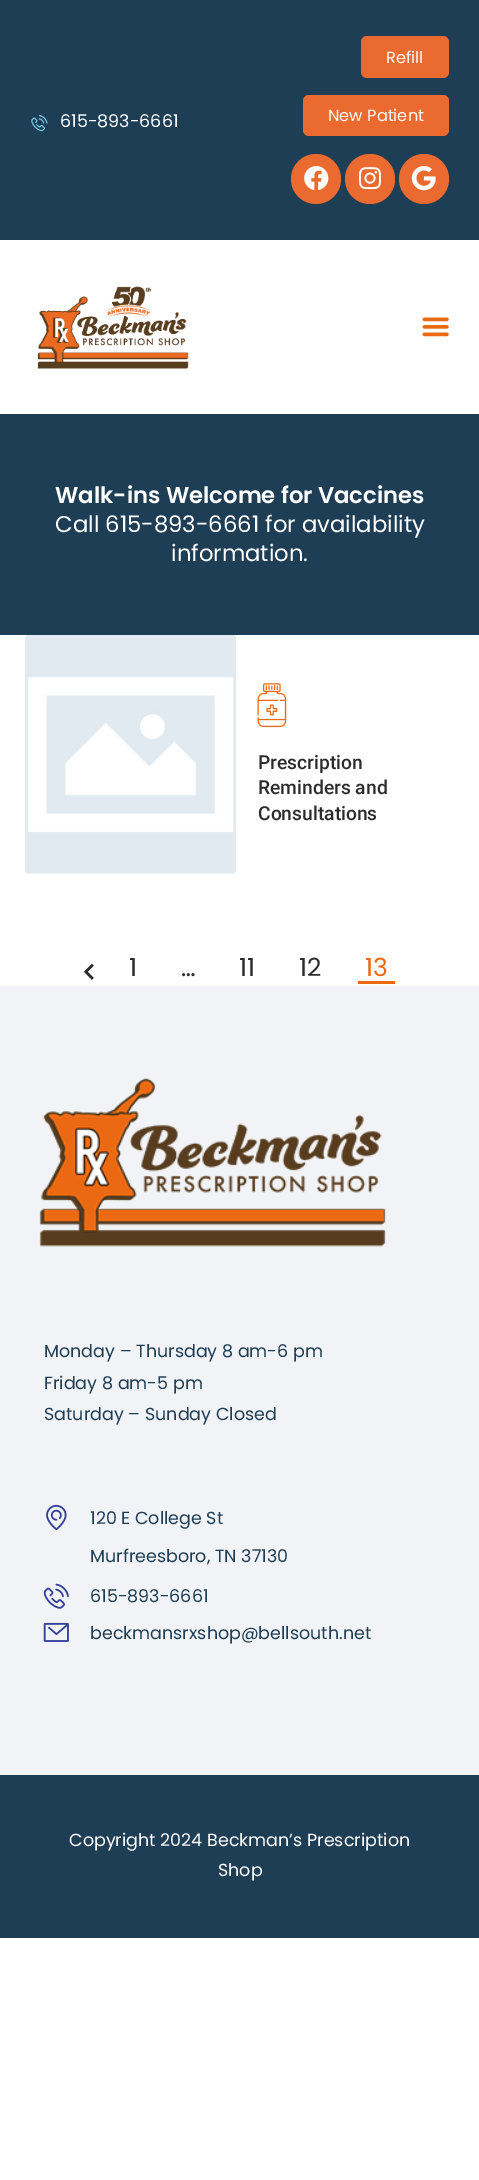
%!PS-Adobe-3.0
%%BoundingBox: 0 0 479 2180
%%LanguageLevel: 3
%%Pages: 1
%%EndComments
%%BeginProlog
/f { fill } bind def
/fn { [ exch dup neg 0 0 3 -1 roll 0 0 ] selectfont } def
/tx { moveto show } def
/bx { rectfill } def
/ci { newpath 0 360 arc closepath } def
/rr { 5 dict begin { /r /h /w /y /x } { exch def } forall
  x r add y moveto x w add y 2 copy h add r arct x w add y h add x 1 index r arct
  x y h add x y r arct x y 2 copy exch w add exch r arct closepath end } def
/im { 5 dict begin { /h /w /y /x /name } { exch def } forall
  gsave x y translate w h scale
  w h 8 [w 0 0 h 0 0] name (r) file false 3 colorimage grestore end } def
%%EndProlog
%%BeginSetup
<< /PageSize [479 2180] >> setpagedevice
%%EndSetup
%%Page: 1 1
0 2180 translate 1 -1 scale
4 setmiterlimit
1 setgray
0 0 479 2180 bx
0.118 0.243 0.337 setrgbcolor
0 0 479 240 bx
(image0.raw) 31 115 17 17 im
/Poppins-Regular 17.5 fn
1 setgray
(615-893-6661) 60 127 tx
0.922 0.416 0.184 setrgbcolor
361 36 88 42 6 rr f
/Poppins-Regular 16.25 fn
1 setgray
(Refill) 386 63 tx
0.922 0.416 0.184 setrgbcolor
303 95 146 41 6 rr f
1 setgray
(New Patient) 328 121 tx
0.922 0.416 0.184 setrgbcolor
316 179 25 ci f
(image1.raw) 304 166 25 24 im
370 179 25 ci f
(image2.raw) 359 167 22 23 im
424 179 25 ci f
(image3.raw) 411 166 25 25 im
(image4.raw) 37 286 152 83 im
(image5.raw) 422 317 27 20 im
0.118 0.243 0.337 setrgbcolor
0 414 479 221 bx
/Poppins-SemiBold 22.75 fn
1 setgray
(Walk-ins Welcome for Vaccines) 55 503 tx
/Poppins-Regular 22.75 fn
(Call 615-893-6661 for availability) 55 532 tx
(information.) 171 561 tx
(image6.raw) 25 635 211 239 im
(image7.raw) 257 683 30 45 im
/Roboto-Medium 19.25 fn
0.169 setgray
(Prescription) 258 769 tx
(Reminders and) 258 794 tx
(Consultations) 258 820 tx
(image8.raw) 83 963 11 17 im
/Poppins-Regular 25 fn
(1) 129 976 tx
(…) 181 976 tx
(11) 239 976 tx
(12) 299 976 tx
0.922 0.412 0.071 setrgbcolor
358 981 37 3 bx
(13) 365 976 tx
0.945 0.953 0.965 setrgbcolor
0 986 479 789 bx
(image9.raw) 39 1078 347 169 im
/Poppins-Regular 17.5 fn
0.118 0.243 0.337 setrgbcolor
(Monday – Thursday 8 am-6 pm) 44 1357 tx
(Friday 8 am-5 pm) 44 1389 tx
(Saturday – Sunday Closed) 44 1420 tx
(image10.raw) 46 1504 21 26 im
(120 E College St) 90 1524 tx
(Murfreesboro, TN 37130) 90 1562 tx
(image11.raw) 43 1583 26 26 im
(615-893-6661) 90 1602 tx
(image12.raw) 43 1622 26 20 im
(beckmansrxshop@bellsouth.net) 90 1639 tx
0 1775 479 163 bx
1 setgray
(Copyright 2024 Beckman’s Prescription) 69 1846 tx
(Shop) 218 1876 tx
showpage
%%EOF
